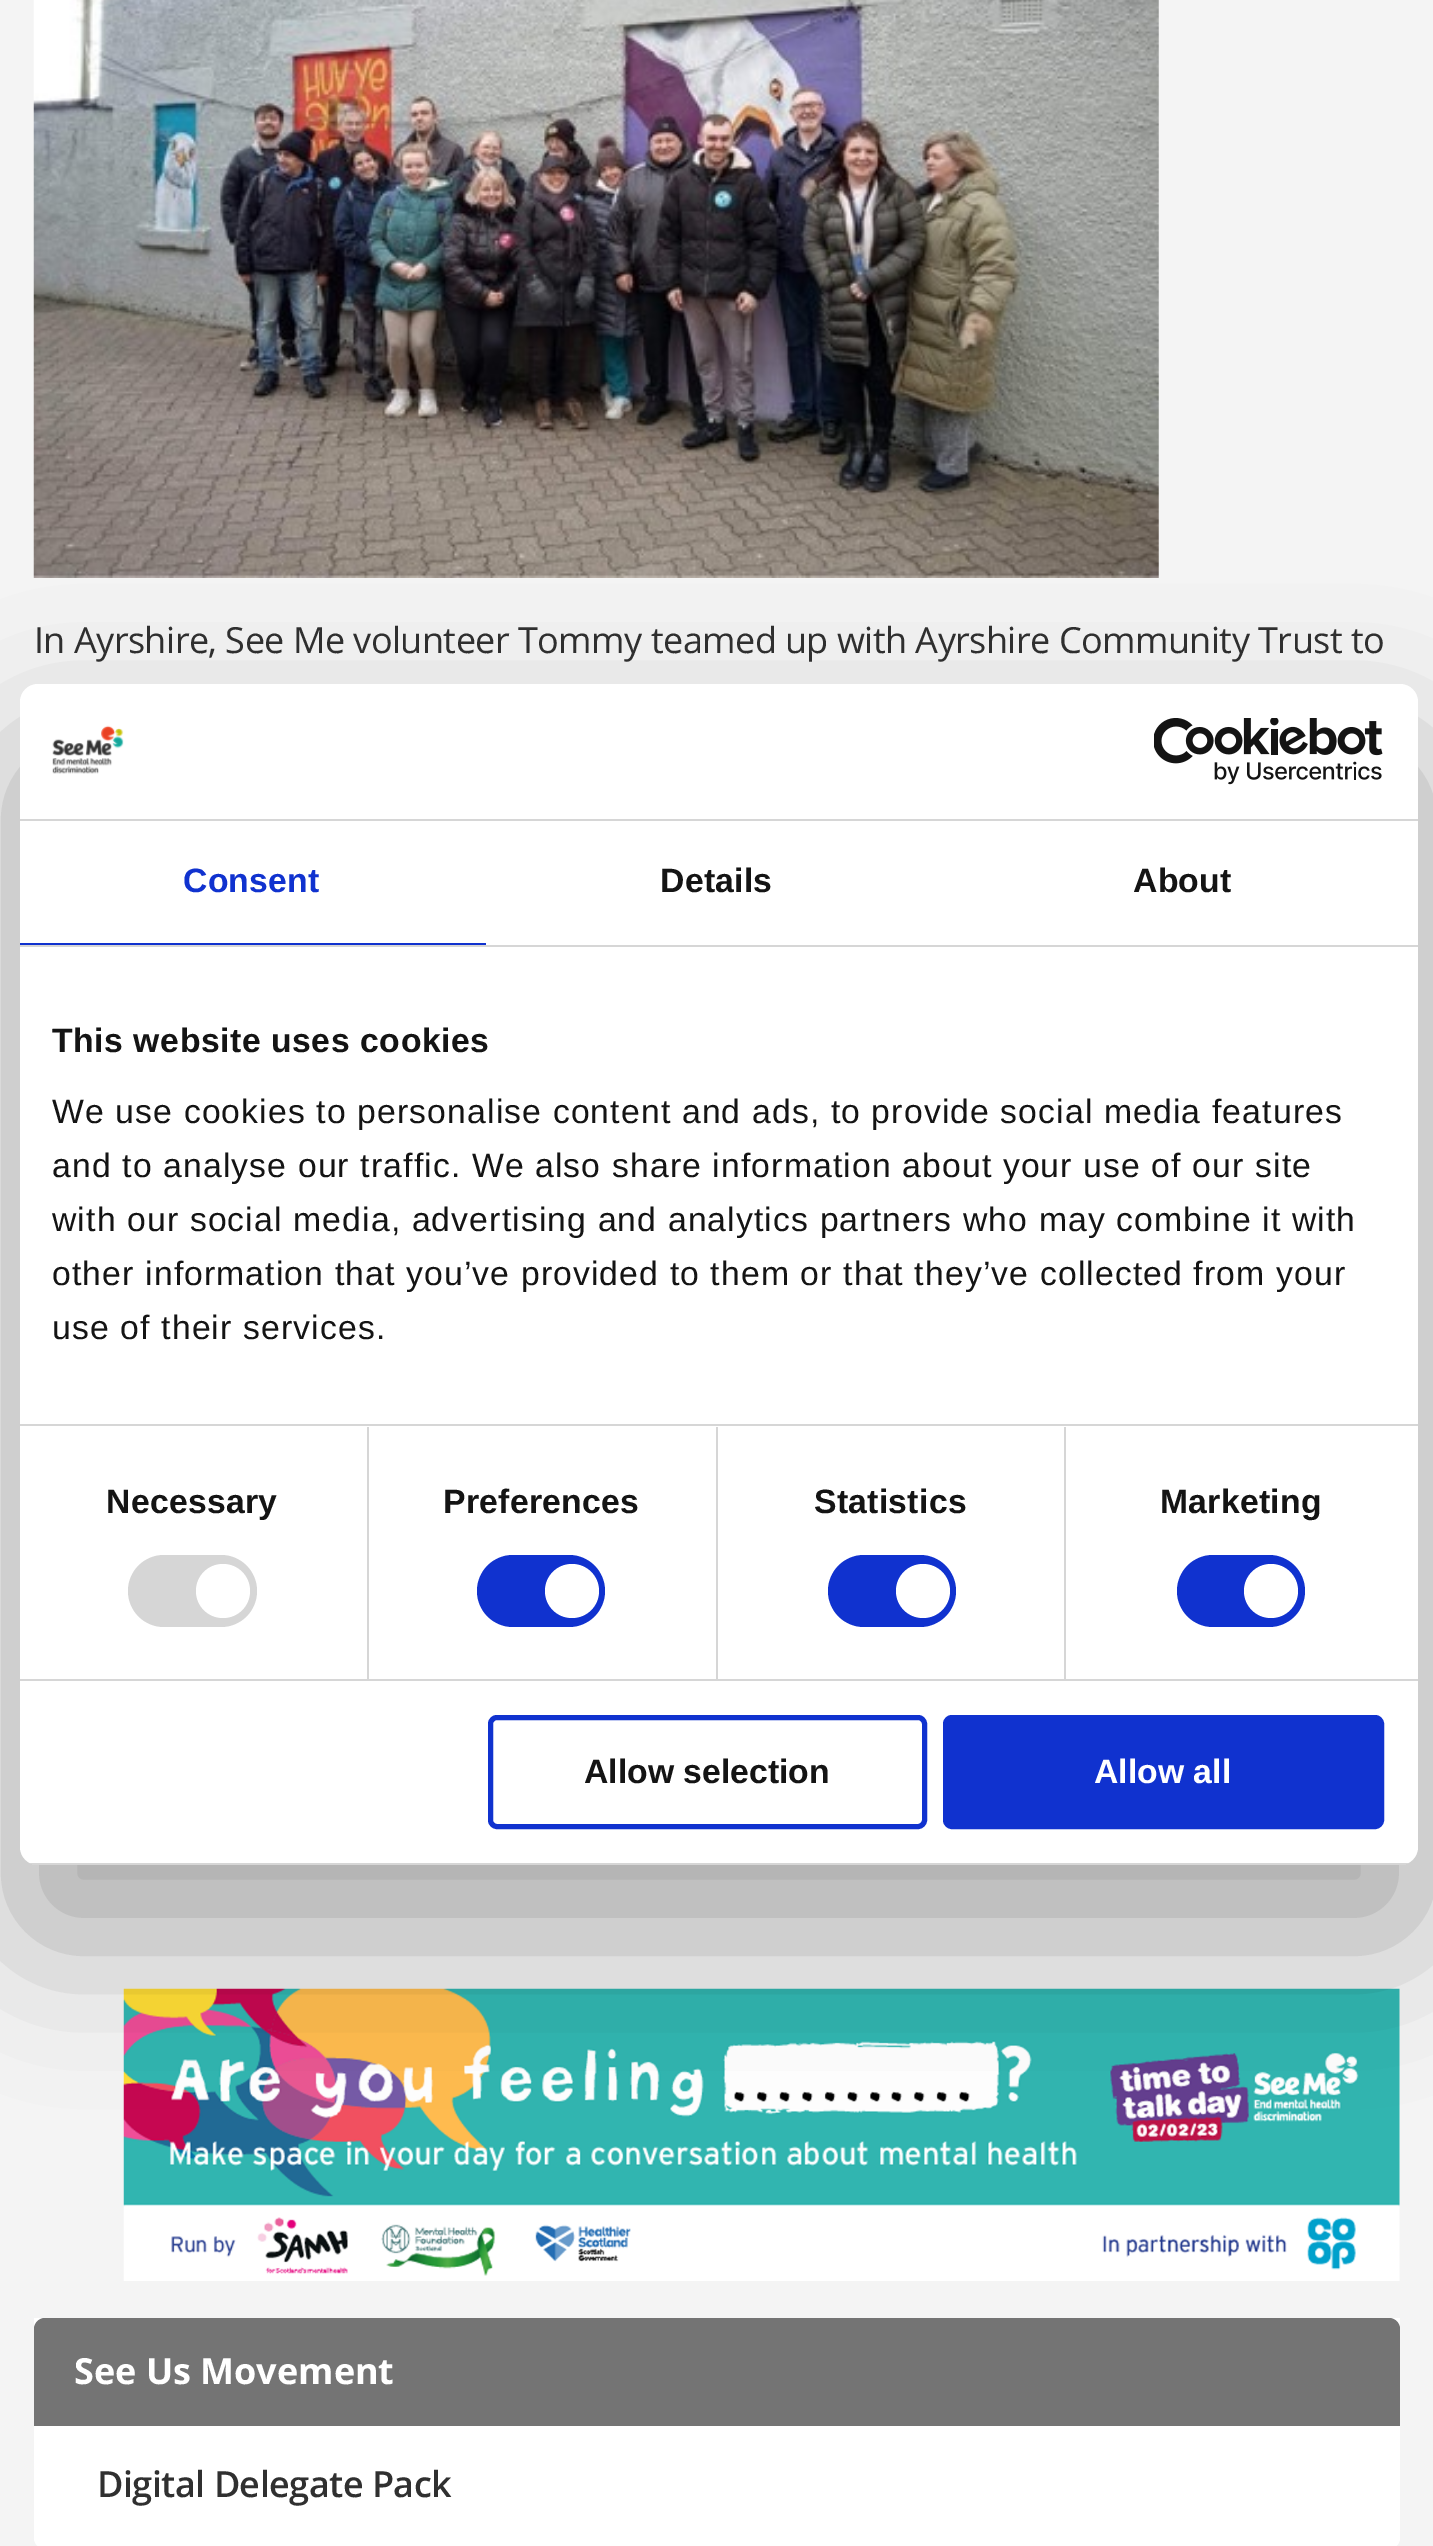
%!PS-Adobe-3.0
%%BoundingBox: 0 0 1433 2546
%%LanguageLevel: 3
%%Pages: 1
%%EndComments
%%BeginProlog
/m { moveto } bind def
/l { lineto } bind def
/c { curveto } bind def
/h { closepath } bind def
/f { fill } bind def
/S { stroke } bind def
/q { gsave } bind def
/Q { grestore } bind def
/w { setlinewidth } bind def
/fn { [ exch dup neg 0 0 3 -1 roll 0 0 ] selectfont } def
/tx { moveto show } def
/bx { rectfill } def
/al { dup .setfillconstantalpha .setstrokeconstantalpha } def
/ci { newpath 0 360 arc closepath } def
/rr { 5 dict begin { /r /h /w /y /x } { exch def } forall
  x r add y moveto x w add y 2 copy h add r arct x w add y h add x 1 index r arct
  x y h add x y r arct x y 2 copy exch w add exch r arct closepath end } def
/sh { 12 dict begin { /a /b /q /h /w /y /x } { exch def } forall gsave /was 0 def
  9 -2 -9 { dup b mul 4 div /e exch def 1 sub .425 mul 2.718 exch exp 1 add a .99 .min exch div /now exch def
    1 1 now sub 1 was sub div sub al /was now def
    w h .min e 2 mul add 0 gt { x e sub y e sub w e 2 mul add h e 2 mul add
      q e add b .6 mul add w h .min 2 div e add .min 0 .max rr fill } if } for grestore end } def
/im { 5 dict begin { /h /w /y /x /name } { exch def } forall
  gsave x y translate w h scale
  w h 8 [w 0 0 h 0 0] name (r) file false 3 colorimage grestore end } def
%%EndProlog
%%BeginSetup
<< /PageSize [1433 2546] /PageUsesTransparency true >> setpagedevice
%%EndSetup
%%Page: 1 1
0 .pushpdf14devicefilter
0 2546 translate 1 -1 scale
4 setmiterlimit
0.957 setgray
0 0 1433 2546 bx
(image0.raw) 33 0 1126 578 im
/OpenSans-Regular 36 fn
0.188 setgray
34 653 m -0.55 0 (In Ayrshire, See Me volunteer Tommy teamed up with Ayrshire Community Trust to) ashow
(image1.raw) 123 1988 1277 293 im
1 setgray
34 2318 m 1400 2318 l 1400 2538 l 1400 2544 1395 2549 1389 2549 c 45 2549 l 39 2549 34 2544 34 2538 c h f
0.455 setgray
45 2318 m 1389 2318 l 1395 2318 1400 2323 1400 2329 c 1400 2426 l 34 2426 l 34 2329 l 34 2323 39 2318 45 2318 c h f
/OpenSans-Bold 36 fn
1 setgray
(See Us Movement) 74 2384 tx
/OpenSans-SemiBold 36 fn
0.188 setgray
97 2497 m -0.55 0 (Digital Delegate Pack) ashow
0 setgray
20 756 1398 1181 18 76.5 0.3 sh
1 setgray
20 684 1398 1181 18 rr f
0.839 setgray
20 819 1398 2 bx
(image2.raw) 52 725 72 49 im
(image3.raw) 1154 718 229 67 im
20 945 1398 2 bx
0.063 0.196 0.812 setrgbcolor
20 943 466 2 bx
/LiberationSans-Bold 33.75 fn
183 892 m 0.25 0 (Consent) ashow
0.078 setgray
660 892 m 0.25 0 (Details) ashow
1133 892 m 0.25 0 (About) ashow
0.839 setgray
20 1424 1398 2 bx
0.078 setgray
52 1052 m 0.55 0 (This website uses cookies) ashow
/LiberationSans-Regular 33.75 fn
52 1123 m 1.12 0 (We use cookies to personalise content and ads, to provide social media features) ashow
52 1177 m 1.12 0 (and to analyse our traffic. We also share information about your use of our site) ashow
52 1231 m 1.12 0 (with our social media, advertising and analytics partners who may combine it with) ashow
52 1285 m 1.12 0 (other information that you’ve provided to them or that they’ve collected from your) ashow
52 1339 m 1.12 0 (use of their services.) ashow
0.839 setgray
20 1679 1398 2 bx
367 1427 2 252 bx
/LiberationSans-Bold 33.75 fn
0.078 setgray
106 1513 m 0.25 0 (Necessary) ashow
0.839 setgray
128 1555 129 72 36 rr f
1 setgray
223 1591 27 ci f
0.839 setgray
716 1427 2 252 bx
0.078 setgray
443 1513 m 0.25 0 (Preferences) ashow
0.063 0.196 0.812 setrgbcolor
477 1555 128 72 36 rr f
1 setgray
572 1591 27 ci f
0.839 setgray
1064 1427 2 252 bx
0.078 setgray
814 1513 m 0.25 0 (Statistics) ashow
0.063 0.196 0.812 setrgbcolor
828 1555 128 72 36 rr f
1 setgray
923 1591 27 ci f
0.078 setgray
1160 1513 m 0.25 0 (Marketing) ashow
0.063 0.196 0.812 setrgbcolor
1177 1555 128 72 36 rr f
1 setgray
1271 1591 27 ci f
q
20 684 1398 1181 18 rr clip newpath
0.839 setgray
30 1863 1378 2 bx
Q
0.063 0.196 0.812 setrgbcolor
5 w
490.5 1717.5 434 109 6.5 rr S
0.078 setgray
(Allow selection) 584 1783 tx
0.063 0.196 0.812 setrgbcolor
945.5 1717.5 436 109 6.5 rr q f Q
S
1 setgray
(Allow all) 1094 1783 tx
.poppdf14devicefilter showpage
%%EOF
